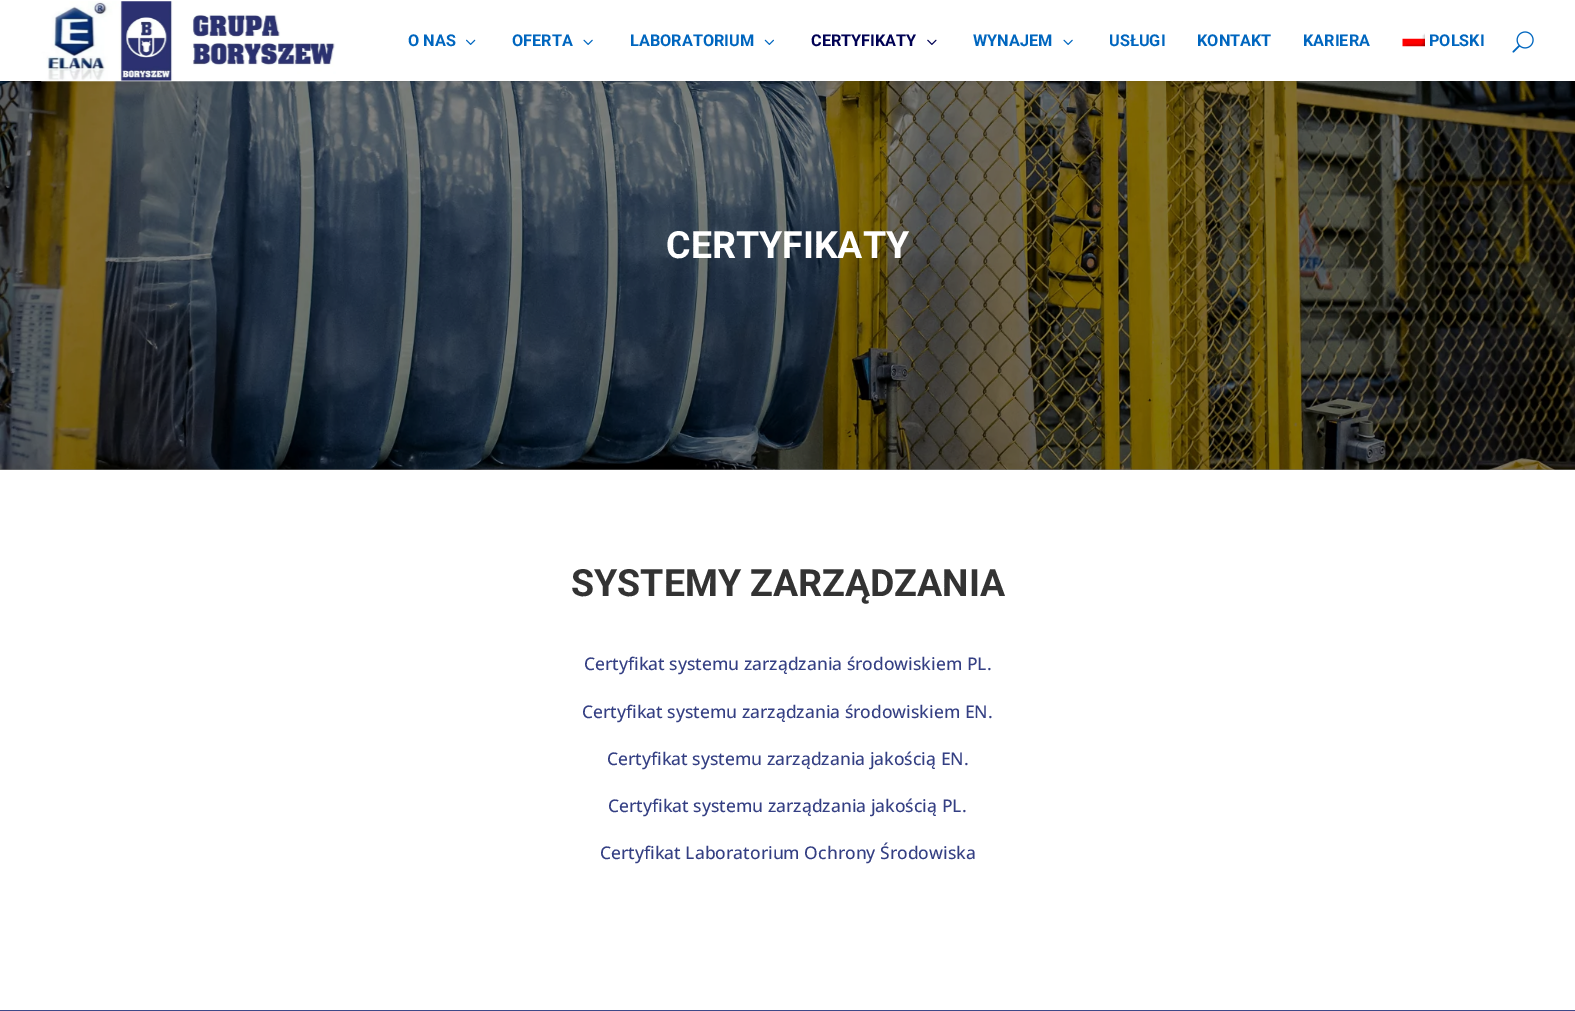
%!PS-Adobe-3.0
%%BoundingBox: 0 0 1575 1011
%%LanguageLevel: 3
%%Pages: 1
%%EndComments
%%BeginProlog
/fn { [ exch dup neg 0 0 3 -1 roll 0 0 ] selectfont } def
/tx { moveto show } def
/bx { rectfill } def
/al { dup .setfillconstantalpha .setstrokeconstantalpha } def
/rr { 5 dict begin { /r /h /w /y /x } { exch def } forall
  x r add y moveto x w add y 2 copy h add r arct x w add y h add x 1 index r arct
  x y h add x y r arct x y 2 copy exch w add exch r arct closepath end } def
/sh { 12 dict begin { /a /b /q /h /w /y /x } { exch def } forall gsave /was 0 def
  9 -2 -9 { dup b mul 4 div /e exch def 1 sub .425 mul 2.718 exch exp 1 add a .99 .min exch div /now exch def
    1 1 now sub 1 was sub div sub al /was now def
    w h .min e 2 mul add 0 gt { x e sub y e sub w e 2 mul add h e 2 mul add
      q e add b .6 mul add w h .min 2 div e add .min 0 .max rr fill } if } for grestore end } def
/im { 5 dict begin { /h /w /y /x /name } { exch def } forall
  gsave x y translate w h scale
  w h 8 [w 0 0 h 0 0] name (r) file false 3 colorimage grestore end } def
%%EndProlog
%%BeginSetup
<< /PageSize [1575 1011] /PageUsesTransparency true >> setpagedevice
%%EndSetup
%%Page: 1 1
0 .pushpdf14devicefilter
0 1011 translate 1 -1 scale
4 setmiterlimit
1 setgray
0 0 1575 1011 bx
0.502 setgray
0 469 1575 1 bx
(image7.raw) 0 81 1575 389 im
0 setgray
0 0 1575 81 0 4.5 0.1 sh
1 setgray
0 0 1575 81 bx
(image0.raw) 41 1 296 81 im
/Roboto-Bold 16.25 fn
0 0.4 0.749 setrgbcolor
(O NAS) 408 46 tx
(image1.raw) 466 39 10 6 im
(OFERTA) 512 46 tx
(image2.raw) 583 39 10 6 im
(LABORATORIUM) 630 46 tx
(image3.raw) 764 39 10 6 im
0 0.004 0.329 setrgbcolor
(CERTYFIKATY) 811 46 tx
(image4.raw) 927 39 10 6 im
0 0.4 0.749 setrgbcolor
(WYNAJEM) 973 46 tx
(image2.raw) 1063 39 10 6 im
(USŁUGI) 1109 46 tx
(KONTAKT) 1197 46 tx
(KARIERA) 1303 46 tx
(image5.raw) 1402 33 23 14 im
(POLSKI) 1429 46 tx
(image6.raw) 1512 31 22 22 im
/Roboto-Bold 37.5 fn
1 setgray
(CERTYFIKATY) 666 258 tx
0.2 setgray
(SYSTEMY ZARZĄDZANIA) 571 596 tx
/OpenSans-Medium 17.5 fn
0.204 0.247 0.514 setrgbcolor
(Certyfikat systemu zarządzania środowiskiem PL.) 584 670 tx
(Certyfikat systemu zarządzania środowiskiem EN.) 582 718 tx
(Certyfikat systemu zarządzania jakością EN.) 607 765 tx
(Certyfikat systemu zarządzania jakością PL.) 608 812 tx
(Certyfikat Laboratorium Ochrony Środowiska) 600 859 tx
0.243 0.286 0.537 setrgbcolor
0 1010 1575 1 bx
.poppdf14devicefilter showpage
%%EOF
